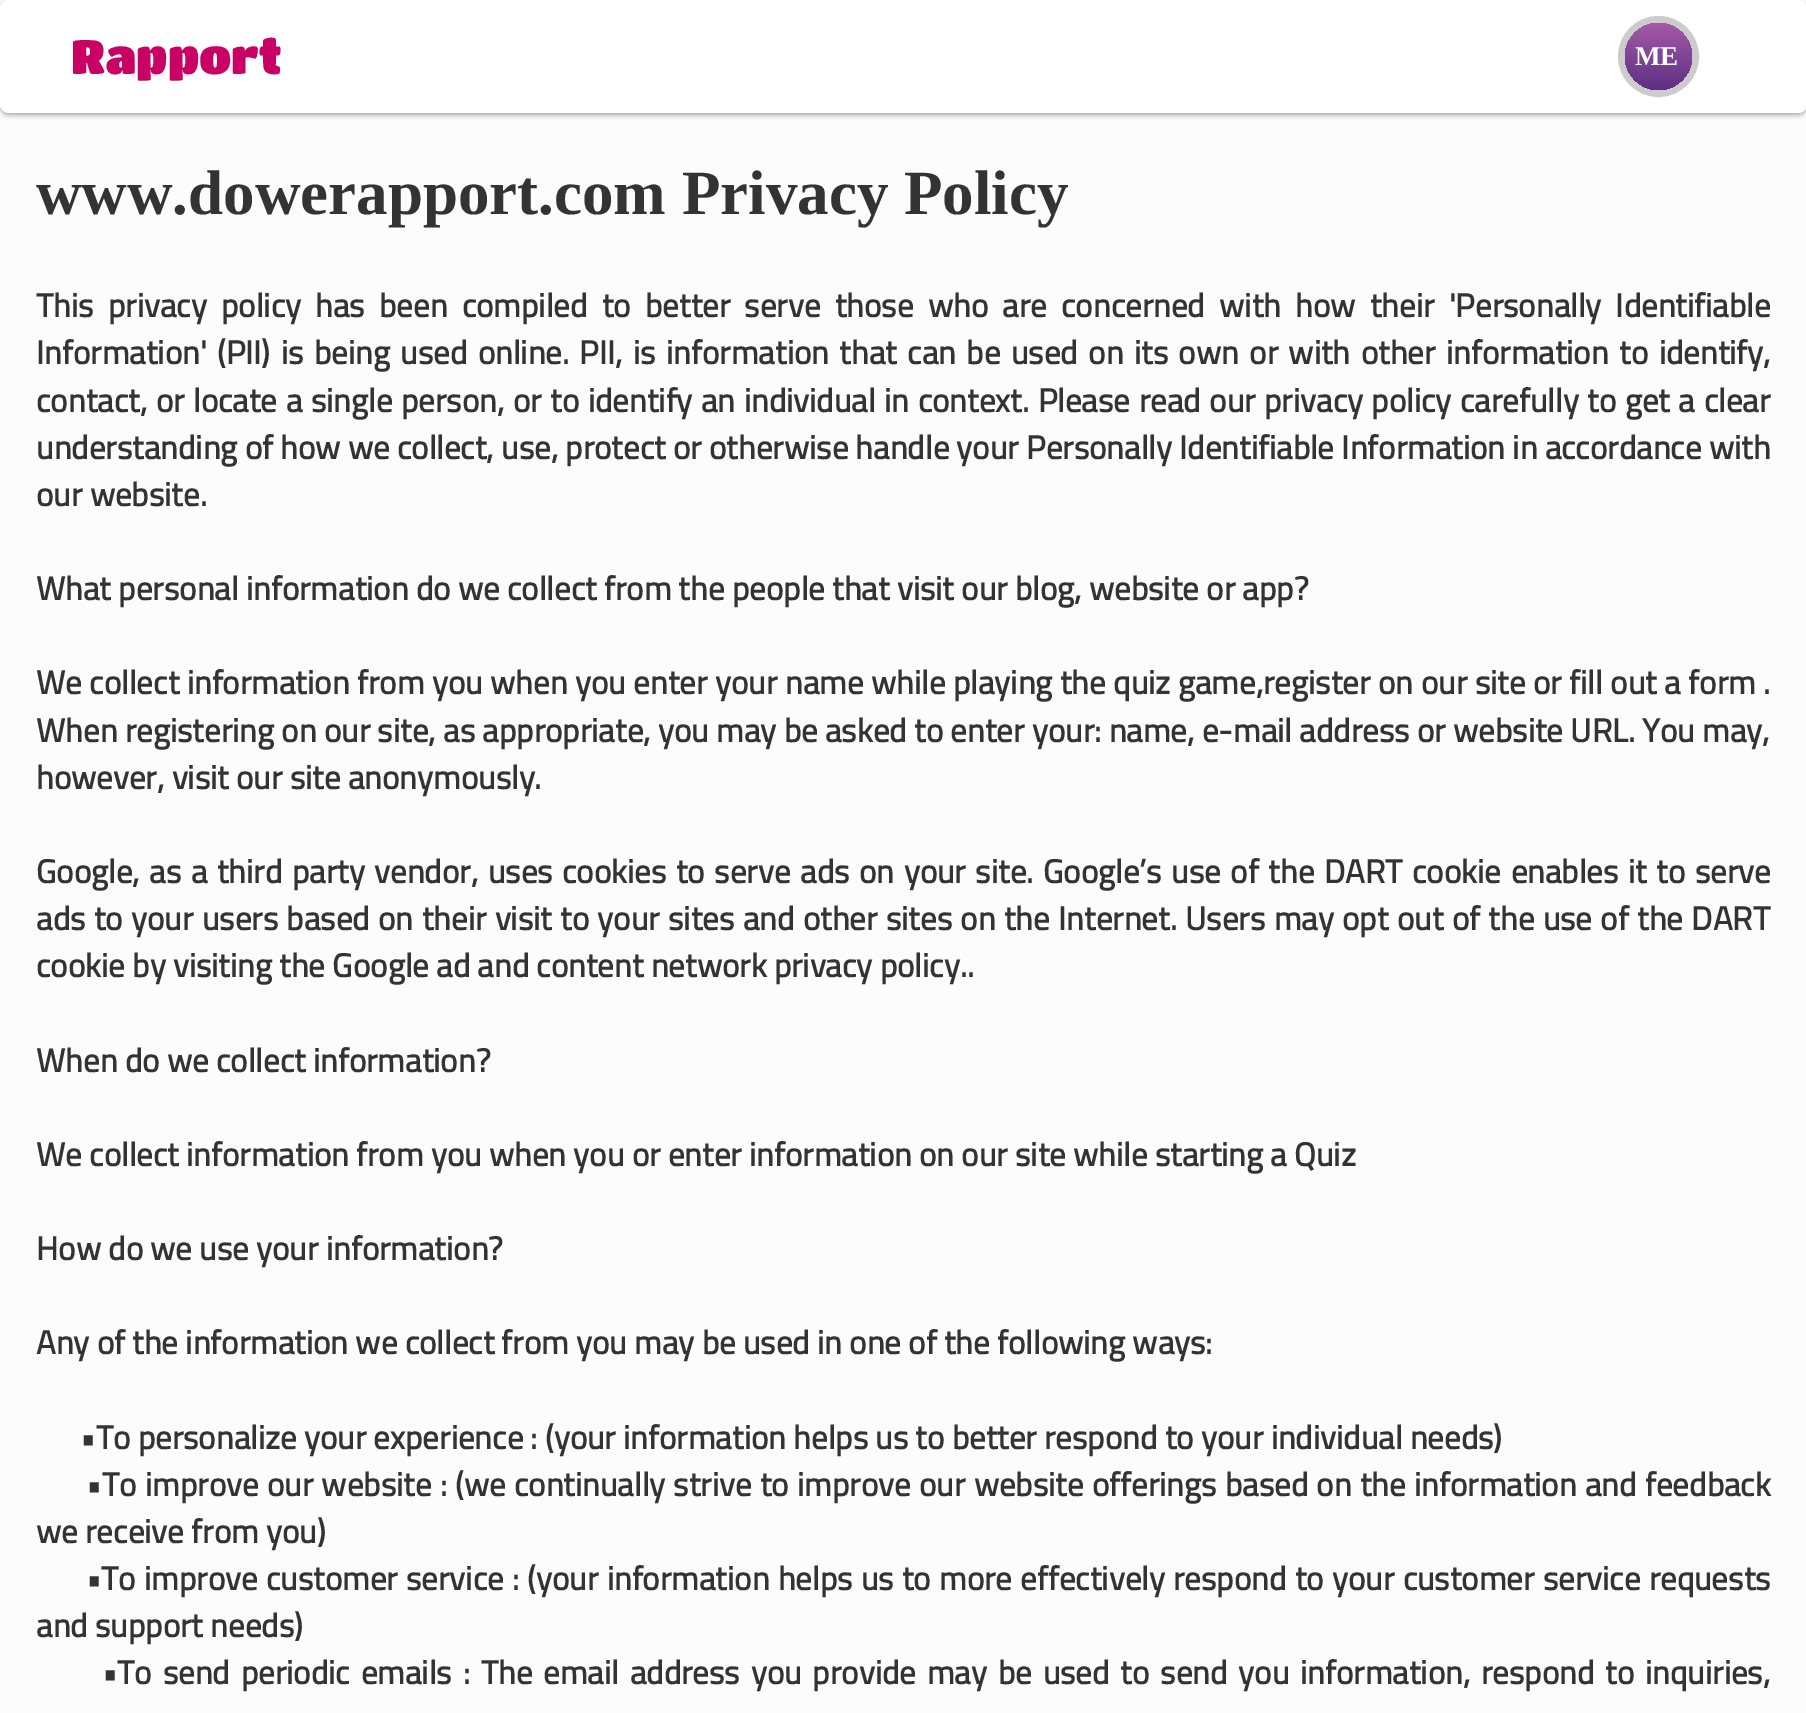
%!PS-Adobe-3.0
%%BoundingBox: 0 0 1806 1713
%%LanguageLevel: 3
%%Pages: 1
%%EndComments
%%BeginProlog
/m { moveto } bind def
/f { fill } bind def
/S { stroke } bind def
/q { gsave } bind def
/Q { grestore } bind def
/w { setlinewidth } bind def
/fn { [ exch dup neg 0 0 3 -1 roll 0 0 ] selectfont } def
/tx { moveto show } def
/bx { rectfill } def
/al { dup .setfillconstantalpha .setstrokeconstantalpha } def
/ci { newpath 0 360 arc closepath } def
/rr { 5 dict begin { /r /h /w /y /x } { exch def } forall
  x r add y moveto x w add y 2 copy h add r arct x w add y h add x 1 index r arct
  x y h add x y r arct x y 2 copy exch w add exch r arct closepath end } def
/sh { 12 dict begin { /a /b /q /h /w /y /x } { exch def } forall gsave /was 0 def
  9 -2 -9 { dup b mul 4 div /e exch def 1 sub .425 mul 2.718 exch exp 1 add a .99 .min exch div /now exch def
    1 1 now sub 1 was sub div sub al /was now def
    w h .min e 2 mul add 0 gt { x e sub y e sub w e 2 mul add h e 2 mul add
      q e add b .6 mul add w h .min 2 div e add .min 0 .max rr fill } if } for grestore end } def
%%EndProlog
%%BeginSetup
<< /PageSize [1806 1713] /PageUsesTransparency true >> setpagedevice
%%EndSetup
%%Page: 1 1
0 .pushpdf14devicefilter
0 1713 translate 1 -1 scale
4 setmiterlimit
0.988 0.988 0.992 setrgbcolor
0 0 1806 1713 bx
0 setgray
0 2 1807 113 9 2 0.24 sh
0 2 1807 113 9 3.5 0.12 sh
1 setgray
0 0 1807 113 9 rr f
/TitanOne-Regular 47.25 fn
0.788 0.004 0.392 setrgbcolor
(Rapport) 71 74 tx
0.8 setgray
7 w
1658.5 56.5 37 ci S
q 1658.5 56.5 33.5 ci clip newpath
<< /ShadingType 2 /ColorSpace /DeviceRGB /Coords [1658 22 1658 90] /Extend [true true] /Function << /FunctionType 2 /Domain [0 1] /C0 [0.651 0.357 0.651] /C1 [0.361 0.184 0.518] /N 1 >> >> shfill Q
/LiberationSerif-Bold 27 fn
1 setgray
(ME) 1635 65 tx
/LiberationSerif-Bold 63 fn
0.2 setgray
(www.dowerapport.com Privacy Policy) 36 214 tx
/TitilliumWeb-Bold 33 fn
36 317 m 7 0 32 (This privacy policy has been compiled to better serve those who are concerned with how their 'Personally Identifiable) widthshow
36 364 m 3.2 0 32 (Information' \(PII\) is being used online. PII, is information that can be used on its own or with other information to identify,) widthshow
36 412 m 1.3 0 32 (contact, or locate a single person, or to identify an individual in context. Please read our privacy policy carefully to get a clear) widthshow
(understanding of how we collect, use, protect or otherwise handle your Personally Identifiable Information in accordance with) 36 459 tx
(our website.) 36 506 tx
(What personal information do we collect from the people that visit our blog, website or app?) 36 600 tx
36 694 m 0.25 0 32 (We collect information from you when you enter your) widthshow
785 694 m 0.25 0 32 (name while playing the quiz game,register) widthshow
1378 694 m 0.25 0 32 (on our site or fill out a form .) widthshow
36 742 m 0.1 0 32 (When registering on our site, as appropriate, you may be asked to enter your: name, e-mail address or website URL. You may,) widthshow
(however, visit our site anonymously.) 36 789 tx
36 883 m 2.3 0 32 (Google, as a third party vendor, uses cookies to serve ads on your site. Google’s use of the DART cookie enables it to serve) widthshow
36 930 m 1.1 0 32 (ads to your users based on their visit to your sites and other sites on the Internet. Users may opt out of the use of the DART) widthshow
(cookie by visiting the Google ad and content network privacy policy..) 36 977 tx
(When do we collect information?) 36 1072 tx
(We collect information from you when you or enter information on our site while starting a Quiz) 36 1166 tx
(How do we use your information?) 36 1260 tx
(Any of the information we collect from you may be used in one of the following ways:) 36 1354 tx
(•To personalize your experience : \(your information helps us to better respond to your individual needs\)) 80 1449 tx
(•) 86 1496 tx
102 1496 m 1 0 32 (To improve our website : \(we continually strive to improve our website offerings based on the information and feedback) widthshow
(we receive from you\)) 36 1543 tx
(•) 86 1590 tx
101 1590 m 1 0 32 (To improve customer service : \(your information helps us to more effectively respond to your customer service requests) widthshow
(and support needs\)) 36 1637 tx
(•) 102 1684 tx
117 1684 m 3.6 0 32 (To send periodic emails : The email address you provide may be used to send you information, respond to inquiries,) widthshow
.poppdf14devicefilter showpage
%%EOF
